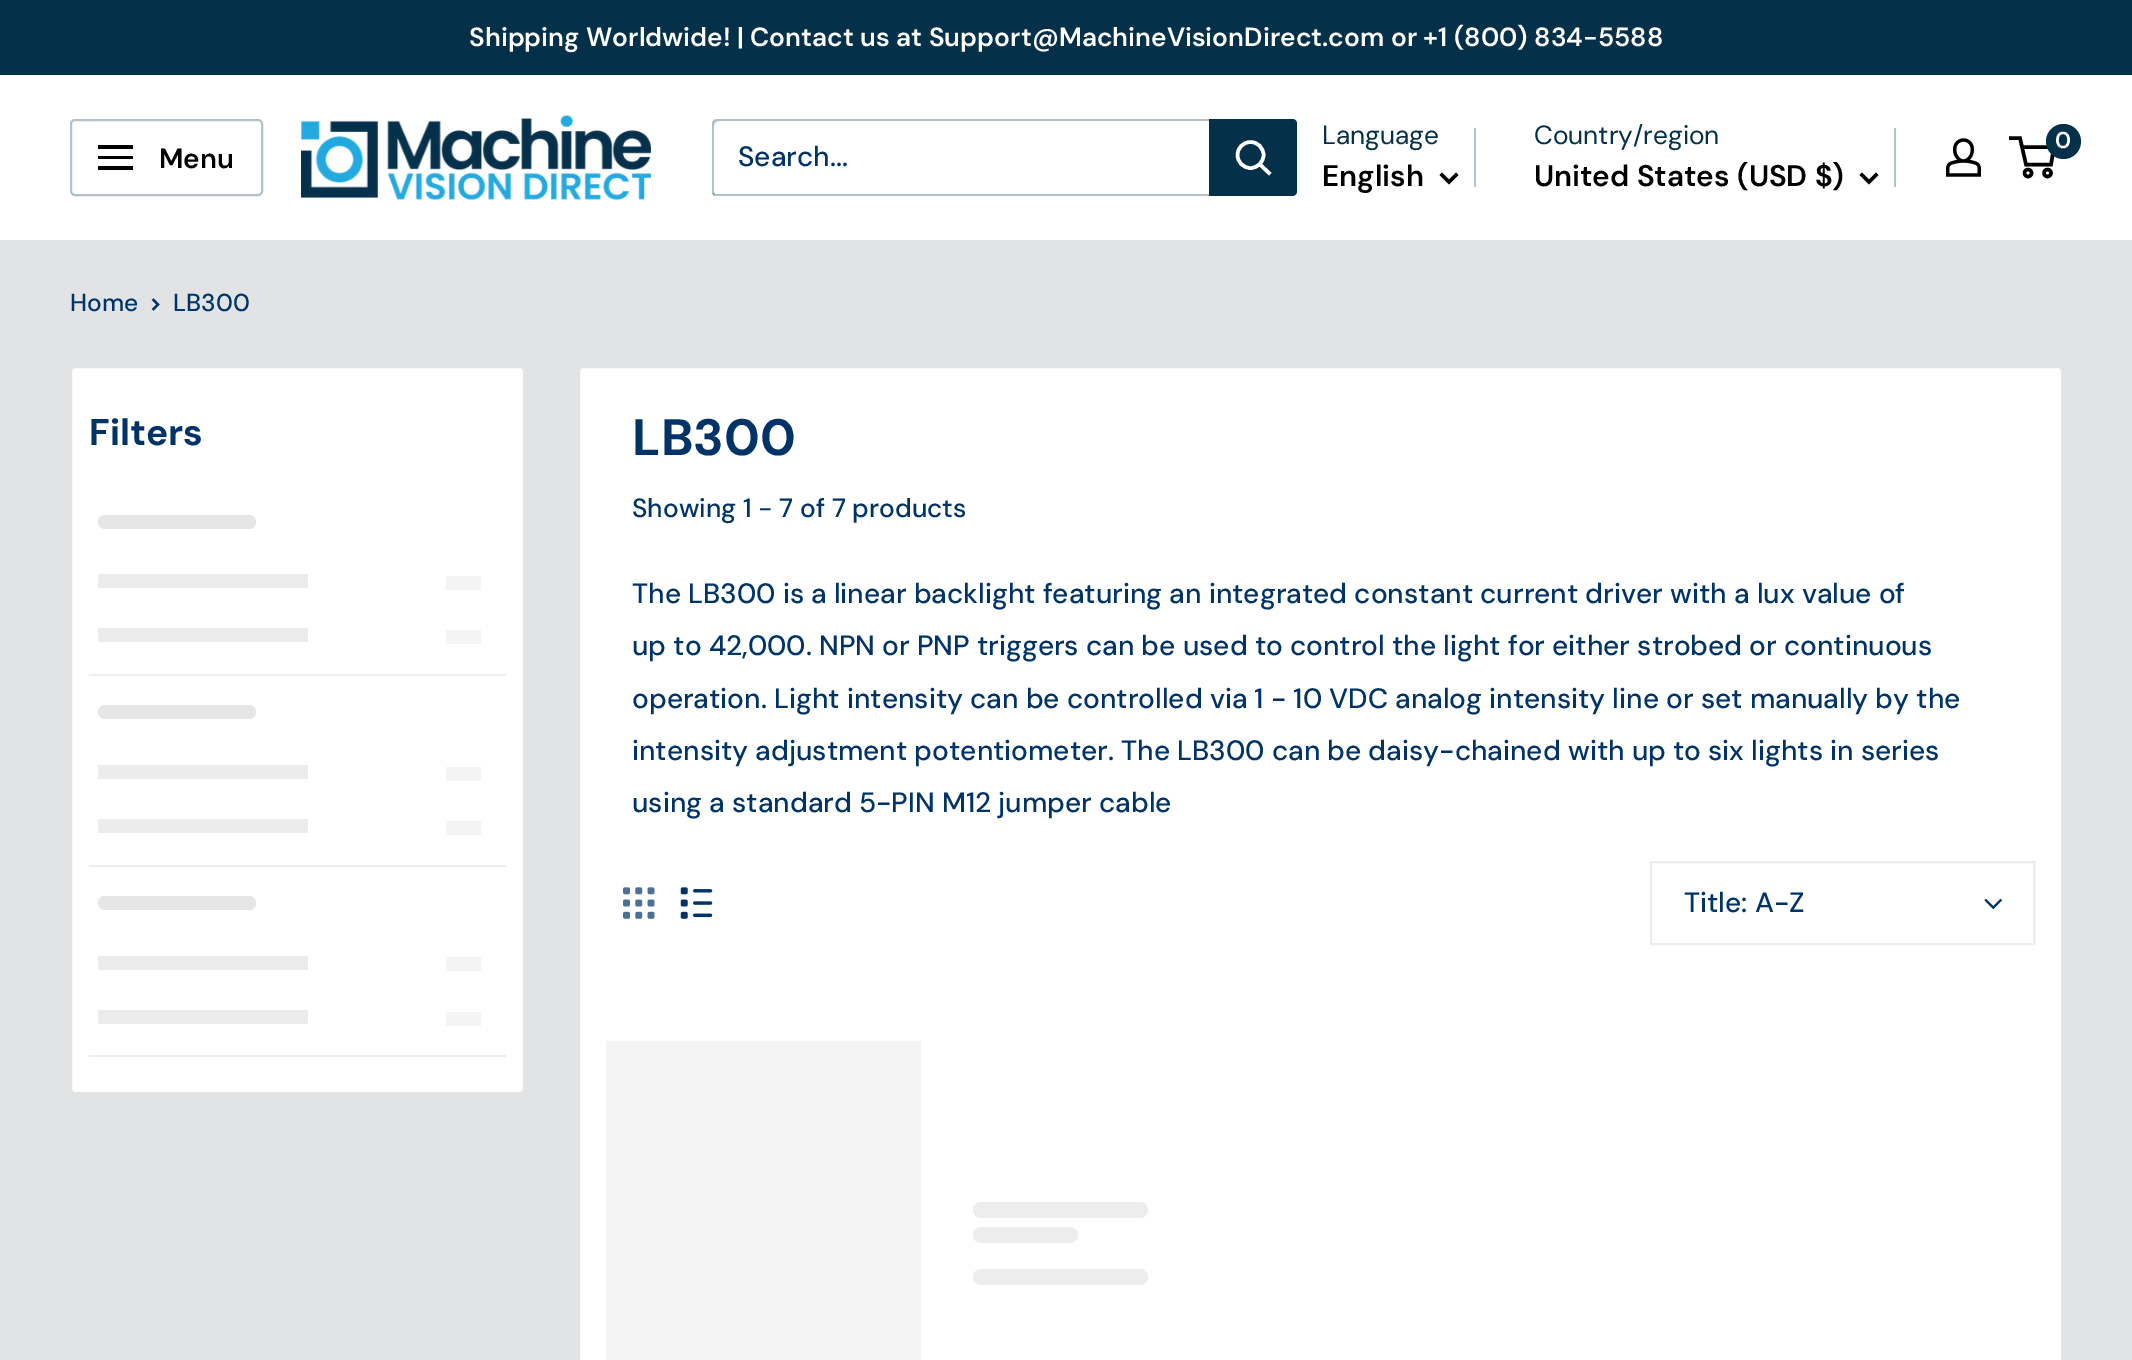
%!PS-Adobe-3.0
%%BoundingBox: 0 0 2132 1360
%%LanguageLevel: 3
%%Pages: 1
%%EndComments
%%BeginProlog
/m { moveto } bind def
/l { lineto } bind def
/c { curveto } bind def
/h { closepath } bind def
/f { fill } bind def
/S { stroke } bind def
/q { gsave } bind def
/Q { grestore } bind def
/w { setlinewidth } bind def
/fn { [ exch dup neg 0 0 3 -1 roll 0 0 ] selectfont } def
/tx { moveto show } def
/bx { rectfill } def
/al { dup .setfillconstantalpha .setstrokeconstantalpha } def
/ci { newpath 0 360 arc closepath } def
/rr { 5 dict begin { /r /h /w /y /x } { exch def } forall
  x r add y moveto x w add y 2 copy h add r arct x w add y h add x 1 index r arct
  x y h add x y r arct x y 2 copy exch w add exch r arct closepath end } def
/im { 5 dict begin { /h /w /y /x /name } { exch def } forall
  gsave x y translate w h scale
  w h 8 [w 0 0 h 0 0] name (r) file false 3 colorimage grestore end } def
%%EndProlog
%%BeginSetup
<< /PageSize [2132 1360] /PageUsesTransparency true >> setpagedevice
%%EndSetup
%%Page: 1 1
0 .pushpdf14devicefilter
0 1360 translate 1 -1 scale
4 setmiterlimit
0.882 0.89 0.894 setrgbcolor
0 0 2132 1360 bx
0.02 0.188 0.286 setrgbcolor
0 0 2132 75 bx
/DMSans-SemiBold 26.25 fn
1 setgray
(Shipping Worldwide! | Contact us at Support@MachineVisionDirect.com or +1 \(800\) 834-5588) 469 46 tx
0 75 2132 165 bx
0.706 0.757 0.784 setrgbcolor
2 w
71 120 191 75 4 rr S
0 setgray
98 166 m 133 166 l 133 170 l 98 170 l h 98 145 m 133 145 l 133 149 l 98 149 l h 98 156 m 133 156 l 133 159 l 98 159 l h eofill
/DMSans-SemiBold 28 fn
(Menu) 159 168 tx
(image0.raw) 301 115 350 85 im
0.706 0.757 0.784 setrgbcolor
712 193 m 713 195 715 196 717 196 c 1292 196 l 1295 196 1297 194 1297 191 c 1297 124 l 1297 122 1296 120 1294 120 c 1295 122 l 1295 189 l 1295 192 1293 194 1290 194 c 716 194 l h f
0.3 al
0.02 0.188 0.286 setrgbcolor
719 121 m 1293 121 l 1295 121 1296 122 1297 123 c 1296 120 1294 119 1292 119 c 717 119 l 714 119 712 121 712 124 c 712 191 l 712 193 713 195 715 196 c 714 192 l 714 126 l 714 123 716 121 719 121 c h f
/DMSans-Medium 28 fn
1 al
0 0.204 0.408 setrgbcolor
(Search...) 738 166 tx
0.02 0.188 0.286 setrgbcolor
1209 119 m 1292 119 l 1295 119 1297 121 1297 124 c 1297 191 l 1297 194 1295 196 1292 196 c 1209 196 l h f
1 setgray
3.5 w
2 setlinecap
1269 173 m 1260 164.5 l S
0 setlinecap
1250.5 155 13 ci S
/DMSans-Regular 26.25 fn
0.02 0.188 0.286 setrgbcolor
(Language) 1322 144 tx
/DMSans-SemiBold 29.75 fn
0 setgray
(English) 1322 186 tx
2 setlinecap
1456 175 m 1449 182 l 1442 175 l S
0.706 0.757 0.784 setrgbcolor
1474 128 2 59 bx
/DMSans-Regular 26.25 fn
0.02 0.188 0.286 setrgbcolor
(Country/region) 1534 144 tx
/DMSans-SemiBold 29.75 fn
0 setgray
(United States \(USD $\)) 1534 186 tx
1876 175 m 1869 182 l 1862 175 l S
0.706 0.757 0.784 setrgbcolor
1894 128 2 59 bx
(image1.raw) 1946 138 35 39 im
0 setgray
0 setlinecap
2028 173 3.5 ci S
2047.5 173 3.5 ci S
2022 147 m 2054 147 l 2051 164.5 l 2026 164.5 l 2020 138 l 2009 138 l S
0.02 0.188 0.286 setrgbcolor
2063.5 141.5 17.5 ci f
/DMSans-SemiBold 23 fn
1 setgray
(0) 2055 148 tx
/DMSans-Medium 24.5 fn
0 0.204 0.408 setrgbcolor
(Home) 70 311 tx
2.3 w
2 setlinecap
153.5 300 m 158 304.5 l 153.5 309 l S
(LB300) 173 311 tx
1 setgray
71 367 453 726 4 rr q f Q
0.882 0.89 0.894 setrgbcolor
2 w
0 setlinecap
S
/DMSans-Bold 37 fn
0 0.204 0.408 setrgbcolor
(Filters) 89 445 tx
0.929 setgray
89 674 417 2 bx
0.902 setgray
98 515 158 14 7 rr f
0.925 setgray
98 574 210 14 bx
0.957 setgray
446 576 35 14 bx
0.925 setgray
98 628 210 14 bx
0.957 setgray
446 630 35 14 bx
0.929 setgray
89 865 417 2 bx
0.902 setgray
98 705 158 14 7 rr f
0.925 setgray
98 765 210 14 bx
0.957 setgray
446 767 35 14 bx
0.925 setgray
98 819 210 14 bx
0.957 setgray
446 821 35 14 bx
0.929 setgray
89 1055 417 2 bx
0.902 setgray
98 896 158 14 7 rr f
0.925 setgray
98 956 210 14 bx
0.957 setgray
446 957 35 14 bx
0.925 setgray
98 1010 210 14 bx
0.957 setgray
446 1012 35 14 bx
1 setgray
579 367 1483 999 4 rr q f Q
0.882 0.89 0.894 setrgbcolor
S
/DMSans-Bold 51 fn
0 0.204 0.408 setrgbcolor
(LB300) 632 455 tx
/DMSans-Medium 26.25 fn
(Showing 1 - 7 of 7 products) 632 517 tx
/DMSans-Medium 28 fn
(The LB300 is a linear backlight featuring an integrated constant current driver with a lux value of) 632 603 tx
(up to 42,000. NPN or PNP triggers can be used to control the light for either strobed or continuous) 632 655 tx
(operation. Light intensity can be controlled via 1 - 10 VDC analog intensity line or set manually by the) 632 708 tx
(intensity adjustment potentiometer. The LB300 can be daisy-chained with up to six lights in series) 632 760 tx
(using a standard 5-PIN M12 jumper cable) 632 812 tx
(image2.raw) 623 887 32 32 im
(image3.raw) 680 887 33 32 im
0.929 setgray
1651 862 383 82 rectstroke
0 0.204 0.408 setrgbcolor
(Title: A-Z) 1684 912 tx
(image4.raw) 1984 898 18 12 im
0.957 setgray
606 1041 315 319 bx
0.929 setgray
973 1202 175 16 8 rr f
973 1227 105 16 8 rr f
973 1269 175 16 8 rr f
.poppdf14devicefilter showpage
%%EOF
